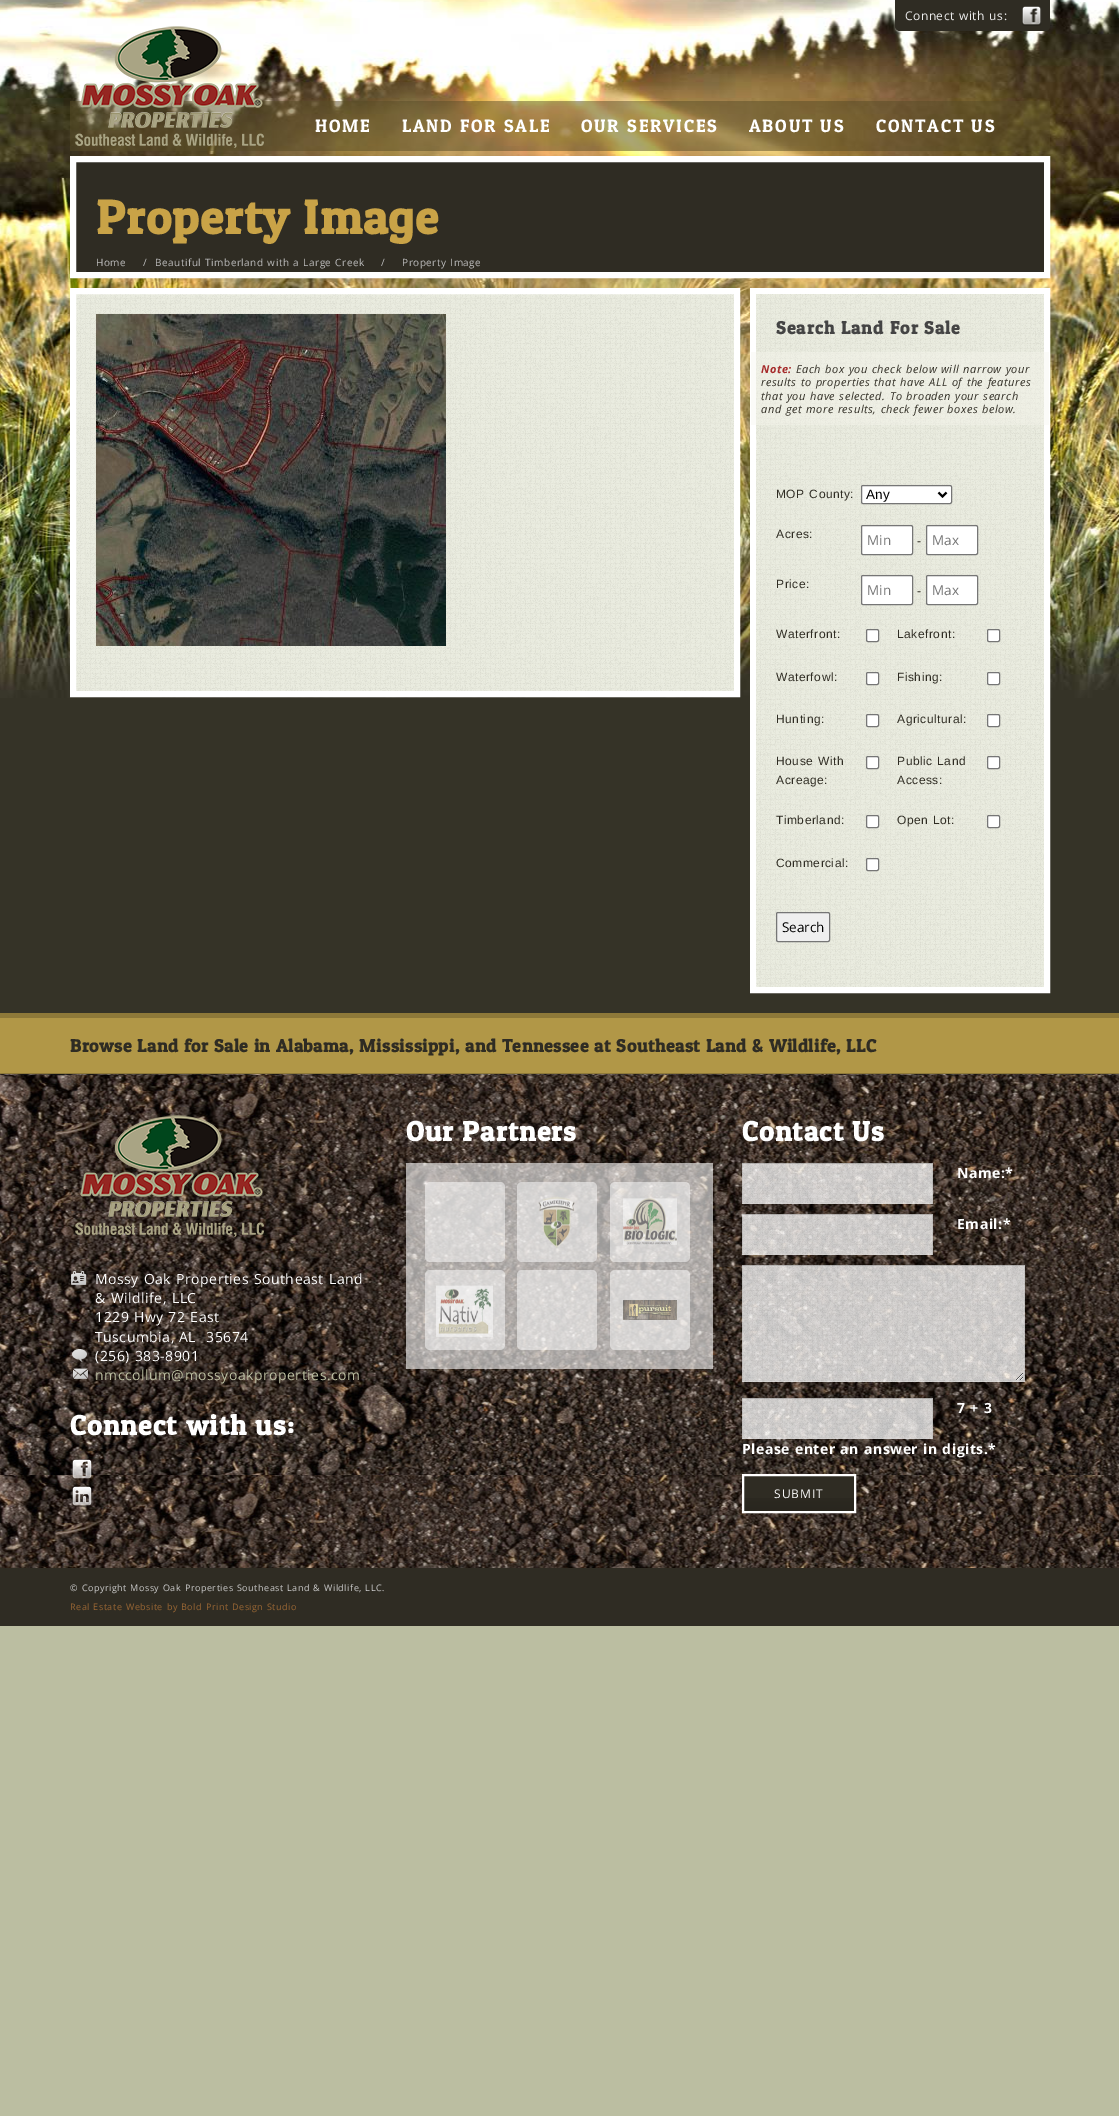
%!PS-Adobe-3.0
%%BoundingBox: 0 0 1119 2116
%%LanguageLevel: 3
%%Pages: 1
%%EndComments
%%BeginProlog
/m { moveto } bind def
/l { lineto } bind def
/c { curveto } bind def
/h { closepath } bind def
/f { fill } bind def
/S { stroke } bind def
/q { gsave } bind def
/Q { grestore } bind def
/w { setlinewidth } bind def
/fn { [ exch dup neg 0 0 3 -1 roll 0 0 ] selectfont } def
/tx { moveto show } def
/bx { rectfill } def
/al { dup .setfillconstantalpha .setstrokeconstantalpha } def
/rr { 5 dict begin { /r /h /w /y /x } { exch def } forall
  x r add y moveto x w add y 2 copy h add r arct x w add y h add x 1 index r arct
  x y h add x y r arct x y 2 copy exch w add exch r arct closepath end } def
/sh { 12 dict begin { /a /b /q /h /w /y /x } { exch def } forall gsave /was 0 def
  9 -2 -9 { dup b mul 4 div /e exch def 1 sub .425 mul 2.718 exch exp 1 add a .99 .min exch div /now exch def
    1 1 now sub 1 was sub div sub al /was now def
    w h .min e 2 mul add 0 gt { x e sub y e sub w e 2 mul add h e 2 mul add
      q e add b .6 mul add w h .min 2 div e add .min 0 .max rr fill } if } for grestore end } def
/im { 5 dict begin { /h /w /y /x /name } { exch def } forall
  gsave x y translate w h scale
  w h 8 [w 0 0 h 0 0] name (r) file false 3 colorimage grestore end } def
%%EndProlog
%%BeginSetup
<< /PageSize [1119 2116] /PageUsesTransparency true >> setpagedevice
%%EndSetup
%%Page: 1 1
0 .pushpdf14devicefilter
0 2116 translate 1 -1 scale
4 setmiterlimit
0.733 0.745 0.631 setrgbcolor
0 0 1119 2116 bx
0.208 0.2 0.153 setrgbcolor
0 698 1119 315 bx
(image0.raw) 0 0 1119 698 im
0.184 0.173 0.137 setrgbcolor
895 0 m 1018 0 l 1018 31 l 900 31 l 897 31 895 29 895 26 c h f
/OpenSans-Regular 12 fn
0.933 setgray
905 20 m 0.75 0 32 0.5 0 (Connect with us:) awidthshow
0.184 0.173 0.137 setrgbcolor
1018 0 m 1050 0 l 1050 26 l 1050 29 1048 31 1045 31 c 1018 31 l h f
(image1.raw) 1022 6 20 20 im
0.5 al
0.341 0.294 0.149 setrgbcolor
70 101 980 50 bx
1 al
(image2.raw) 75 26 189 122 im
/PatuaOne-Regular 18 fn
1 setgray
315 132 m 1.75 0 (HOME) ashow
402 132 m 0.75 0 32 1.75 0 (LAND FOR SALE) awidthshow
581 132 m 0.75 0 32 1.75 0 (OUR SERVICES) awidthshow
749 132 m 0.75 0 32 1.75 0 (ABOUT US) awidthshow
876 132 m 0.75 0 32 1.75 0 (CONTACT US) awidthshow
0 setgray
70 157 980 122 2 1.5 0.05 sh
0.184 0.173 0.137 setrgbcolor
76 162 968 110 bx
1 setgray
6 w
73 159 m 1047 159 l 1047 275 l 73 275 l h S
/PatuaOne-Bold 48 fn
0.788 0.639 0.278 setrgbcolor
96 234 m 0.75 0 32 1 0 (Property Image) awidthshow
/OpenSans-Regular 10 fn
0.733 setgray
96 266 m 0.5 0 (Home) ashow
143 266 m 0.5 0 (/) ashow
155 266 m 0.75 0 32 0.5 0 (Beautiful Timberland with a Large Creek) awidthshow
381 266 m 0.5 0 (/) ashow
402 266 m 0.75 0 32 0.5 0 (Property Image) awidthshow
0 setgray
70 289 670 409 2 1.5 0.05 sh
0.91 0.918 0.863 setrgbcolor
76 294 658 397 bx
(image3.raw) 76 294 658 397 im
1 setgray
73 291 m 737 291 l 737 694 l 73 694 l h S
(image4.raw) 96 314 350 332 im
0.91 0.918 0.863 setrgbcolor
756 294 288 693 bx
(image5.raw) 756 294 288 693 im
1 setgray
753 291 m 1047 291 l 1047 990 l 753 990 l h S
0.91 0.918 0.863 setrgbcolor
756 294 288 146 2 rr f
(image6.raw) 756 294 288 146 im
/PatuaOne-Bold 18 fn
0.267 setgray
776 334 m 0.75 0 32 1 0 (Search Land For Sale) awidthshow
0.4 al
0.965 0.961 0.929 setrgbcolor
751 352 298 73 bx
/OpenSans-BoldItalic 11 fn
1 al
0.647 0.165 0.165 setrgbcolor
761 373 m 0.5 0 (Note:) ashow
/OpenSans-Italic 11 fn
0.184 0.173 0.137 setrgbcolor
796 373 m 0.75 0 32 0.5 0 (Each box you check below will narrow your) awidthshow
761 386 m 0.75 0 32 0.5 0 (results to properties that have ALL of the features) awidthshow
761 400 m 0.75 0 32 0.5 0 (that you have selected. To broaden your search) awidthshow
761 413 m 0.75 0 32 0.5 0 (and get more results, check fewer boxes below.) awidthshow
0.91 0.918 0.863 setrgbcolor
756 450 288 527 2 rr f
(image7.raw) 756 450 288 527 im
/LiberationSans-Regular 12 fn
0.184 0.173 0.137 setrgbcolor
776 498 m 0.75 0 32 0.5 0 (MOP County) awidthshow
850 498 m 0.5 0 (:) ashow
1 setgray
861.5 485.5 90 18 1.5 rr q f Q
0.463 setgray
1 w
S
0 setgray
2 w
938.5 492.5 m 942.5 496.5 l 946.5 492.5 l S
/LiberationSans-Regular 13.5 fn
(Any) 866 499 tx
/LiberationSans-Regular 12 fn
0.184 0.173 0.137 setrgbcolor
776 538 m 0.5 0 (Acres:) ashow
1 setgray
861.5 525.5 51 29 1.5 rr q f Q
0.463 setgray
1 w
S
/OpenSans-Regular 13.5 fn
0.459 setgray
(Min) 867 545 tx
/OpenSans-Regular 12 fn
0.184 0.173 0.137 setrgbcolor
917 545 m 0.5 0 (-) ashow
1 setgray
926.5 525.5 51 29 1.5 rr q f Q
0.463 setgray
S
/OpenSans-Regular 13.5 fn
0.459 setgray
(Max) 932 545 tx
/LiberationSans-Regular 12 fn
0.184 0.173 0.137 setrgbcolor
776 588 m 0.5 0 (Price:) ashow
1 setgray
861.5 575.5 51 29 1.5 rr q f Q
0.463 setgray
S
/OpenSans-Regular 13.5 fn
0.459 setgray
(Min) 867 595 tx
/OpenSans-Regular 12 fn
0.184 0.173 0.137 setrgbcolor
917 595 m 0.5 0 (-) ashow
1 setgray
926.5 575.5 51 29 1.5 rr q f Q
0.463 setgray
S
/OpenSans-Regular 13.5 fn
0.459 setgray
(Max) 932 595 tx
/LiberationSans-Regular 12 fn
0.184 0.173 0.137 setrgbcolor
776 638 m 0.5 0 (Waterfront:) ashow
1 setgray
866.5 629.5 12 12 1.5 rr q f Q
0.463 setgray
S
0.184 0.173 0.137 setrgbcolor
897 638 m 0.5 0 (Lakefront:) ashow
1 setgray
987.5 629.5 12 12 1.5 rr q f Q
0.463 setgray
S
0.184 0.173 0.137 setrgbcolor
776 681 m 0.5 0 (Waterfowl:) ashow
1 setgray
866.5 672.5 12 12 1.5 rr q f Q
0.463 setgray
S
0.184 0.173 0.137 setrgbcolor
897 681 m 0.5 0 (Fishing:) ashow
1 setgray
987.5 672.5 12 12 1.5 rr q f Q
0.463 setgray
S
0.184 0.173 0.137 setrgbcolor
776 723 m 0.5 0 (Hunting:) ashow
1 setgray
866.5 714.5 12 12 1.5 rr q f Q
0.463 setgray
S
0.184 0.173 0.137 setrgbcolor
897 723 m 0.5 0 (Agricultural:) ashow
1 setgray
987.5 714.5 12 12 1.5 rr q f Q
0.463 setgray
S
0.184 0.173 0.137 setrgbcolor
776 765 m 0.75 0 32 0.5 0 (House With) awidthshow
776 784 m 0.5 0 (Acreage:) ashow
1 setgray
866.5 756.5 12 12 1.5 rr q f Q
0.463 setgray
S
0.184 0.173 0.137 setrgbcolor
897 765 m 0.75 0 32 0.5 0 (Public Land) awidthshow
897 784 m 0.5 0 (Access:) ashow
1 setgray
987.5 756.5 12 12 1.5 rr q f Q
0.463 setgray
S
0.184 0.173 0.137 setrgbcolor
776 824 m 0.5 0 (Timberland:) ashow
1 setgray
866.5 815.5 12 12 1.5 rr q f Q
0.463 setgray
S
0.184 0.173 0.137 setrgbcolor
897 824 m 0.75 0 32 0.5 0 (Open Lot) awidthshow
951 824 m 0.5 0 (:) ashow
1 setgray
987.5 815.5 12 12 1.5 rr q f Q
0.463 setgray
S
0.184 0.173 0.137 setrgbcolor
776 867 m 0.5 0 (Commercial:) ashow
1 setgray
866.5 858.5 12 12 1.5 rr q f Q
0.463 setgray
S
0.937 setgray
776.5 912.5 53 29 1.5 rr q f Q
0.463 setgray
S
/OpenSans-Regular 13.5 fn
0 setgray
(Search) 782 932 tx
0.694 0.592 0.278 setrgbcolor
0 1018 1119 55 bx
0.557 0.475 0.224 setrgbcolor
0 1013 1119 5 bx
0 1073 1119 1 bx
/PatuaOne-Bold 18 fn
0.184 0.173 0.137 setrgbcolor
70 1052 m 0.75 0 32 0.5 0 (Browse Land for Sale in Alabama, Mississippi, and Tennessee at Southeast Land & Wildlife, LLC) awidthshow
(image8.raw) 0 1074 1119 494 im
0.07 al
1 setgray
0 1074 1119 1 bx
1 al
(image9.raw) 75 1115 189 122 im
(image10.raw) 71 1271 16 14 im
/OpenSans-Regular 14 fn
95 1284 m 0.75 0 32 0.5 0 (Mossy Oak Properties Southeast Land) awidthshow
95 1303 m 0.75 0 32 0.5 0 (& Wildlife, LLC) awidthshow
95 1322 m 0.75 0 32 0.5 0 (1229 Hwy 72 East) awidthshow
95 1342 m 0.5 0 (Tuscumbia, AL) ashow
206 1342 m 0.5 0 (35674) ashow
(image11.raw) 72 1349 15 13 im
95 1361 m 0.75 0 32 0.5 0 (\(256\) 383-8901) awidthshow
(image12.raw) 73 1368 15 11 im
0.733 0.745 0.631 setrgbcolor
95 1380 m 0.5 0 (nmccollum@mossyoakproperties.com) ashow
/PatuaOne-Bold 28 fn
1 setgray
70 1435 m 0.75 0 32 1 0 (Connect with us:) awidthshow
(image13.raw) 71 1459 22 21 im
(image14.raw) 71 1486 22 21 im
406 1141 m 0.75 0 32 1 0 (Our Partners) awidthshow
0.6 al
406 1163 307 206 bx
0.5 al
425 1182 80 80 5 rr f
517 1182 80 80 5 rr f
1 al
(image15.raw) 538 1196 37 52 im
0.5 al
610 1182 80 80 5 rr f
1 al
(image16.raw) 623 1198 54 47 im
0.5 al
425 1270 80 80 5 rr f
1 al
(image17.raw) 436 1285 57 52 im
0.5 al
517 1270 80 80 5 rr f
610 1270 80 80 5 rr f
1 al
(image18.raw) 623 1300 54 20 im
742 1141 m 0.75 0 32 1 0 (Contact Us) awidthshow
0.75 al
742 1163 191 41 bx
1 al
(image19.raw) 742 1163 191 41 im
0.15 al
0 setgray
742 1163 m 933 1163 l 932 1164 l 743 1164 l h f
0.06 al
933 1163 m 933 1204 l 932 1203 l 932 1164 l h f
0.15 al
1 setgray
933 1204 m 742 1204 l 743 1203 l 932 1203 l h f
0.06 al
0 setgray
742 1204 m 742 1163 l 743 1164 l 743 1203 l h f
/OpenSans-Bold 14 fn
1 al
1 setgray
957 1178 m 0.5 0 (Name:*) ashow
0.75 al
742 1214 191 41 bx
1 al
(image20.raw) 742 1214 191 41 im
0.15 al
0 setgray
742 1214 m 933 1214 l 932 1215 l 743 1215 l h f
0.06 al
933 1214 m 933 1255 l 932 1254 l 932 1215 l h f
0.15 al
1 setgray
933 1255 m 742 1255 l 743 1254 l 932 1254 l h f
0.06 al
0 setgray
742 1255 m 742 1214 l 743 1215 l 743 1254 l h f
1 al
1 setgray
957 1229 m 0.5 0 (Email:*) ashow
0.75 al
742 1265 283 117 bx
1 al
(image21.raw) 742 1265 283 117 im
0.15 al
0 setgray
742 1265 m 1025 1265 l 1024 1266 l 743 1266 l h f
0.06 al
1025 1265 m 1025 1382 l 1024 1381 l 1024 1266 l h f
0.15 al
1 setgray
1025 1382 m 742 1382 l 743 1381 l 1024 1381 l h f
0.06 al
0 setgray
742 1382 m 742 1265 l 743 1266 l 743 1381 l h f
0.75 al
1 setgray
742 1398 191 41 bx
1 al
(image22.raw) 742 1398 191 41 im
0.15 al
0 setgray
742 1398 m 933 1398 l 932 1399 l 743 1399 l h f
0.06 al
933 1398 m 933 1439 l 932 1438 l 932 1399 l h f
0.15 al
1 setgray
933 1439 m 742 1439 l 743 1438 l 932 1438 l h f
0.06 al
0 setgray
742 1439 m 742 1398 l 743 1399 l 743 1438 l h f
1 al
1 setgray
957 1413 m 0.75 0 32 0.5 0 (7 + 3) awidthshow
742 1454 m 0.75 0 32 0.5 0 (Please enter an answer in digits.*) awidthshow
0 setgray
742 1475 114 39 0 1 0.1 sh
0.184 0.173 0.137 setrgbcolor
744 1476 110 35 bx
(image23.raw) 744 1498 110 13 im
1 setgray
2 w
743 1475 112 37 rectstroke
/OpenSans-Regular 12 fn
0.973 setgray
774 1498 m 1 0 (SUBMIT) ashow
0.184 0.173 0.137 setrgbcolor
0 1568 1119 58 bx
/OpenSans-Regular 9 fn
0.8 setgray
70 1591 m 0.75 0 32 0.5 0 (© Copyright Mossy Oak Properties Southeast Land & Wildlife, LLC.) awidthshow
0.6 0.4 0.2 setrgbcolor
70 1610 m 0.75 0 32 0.5 0 (Real Estate Website by Bold Print Design Studio) awidthshow
.poppdf14devicefilter showpage
%%EOF
